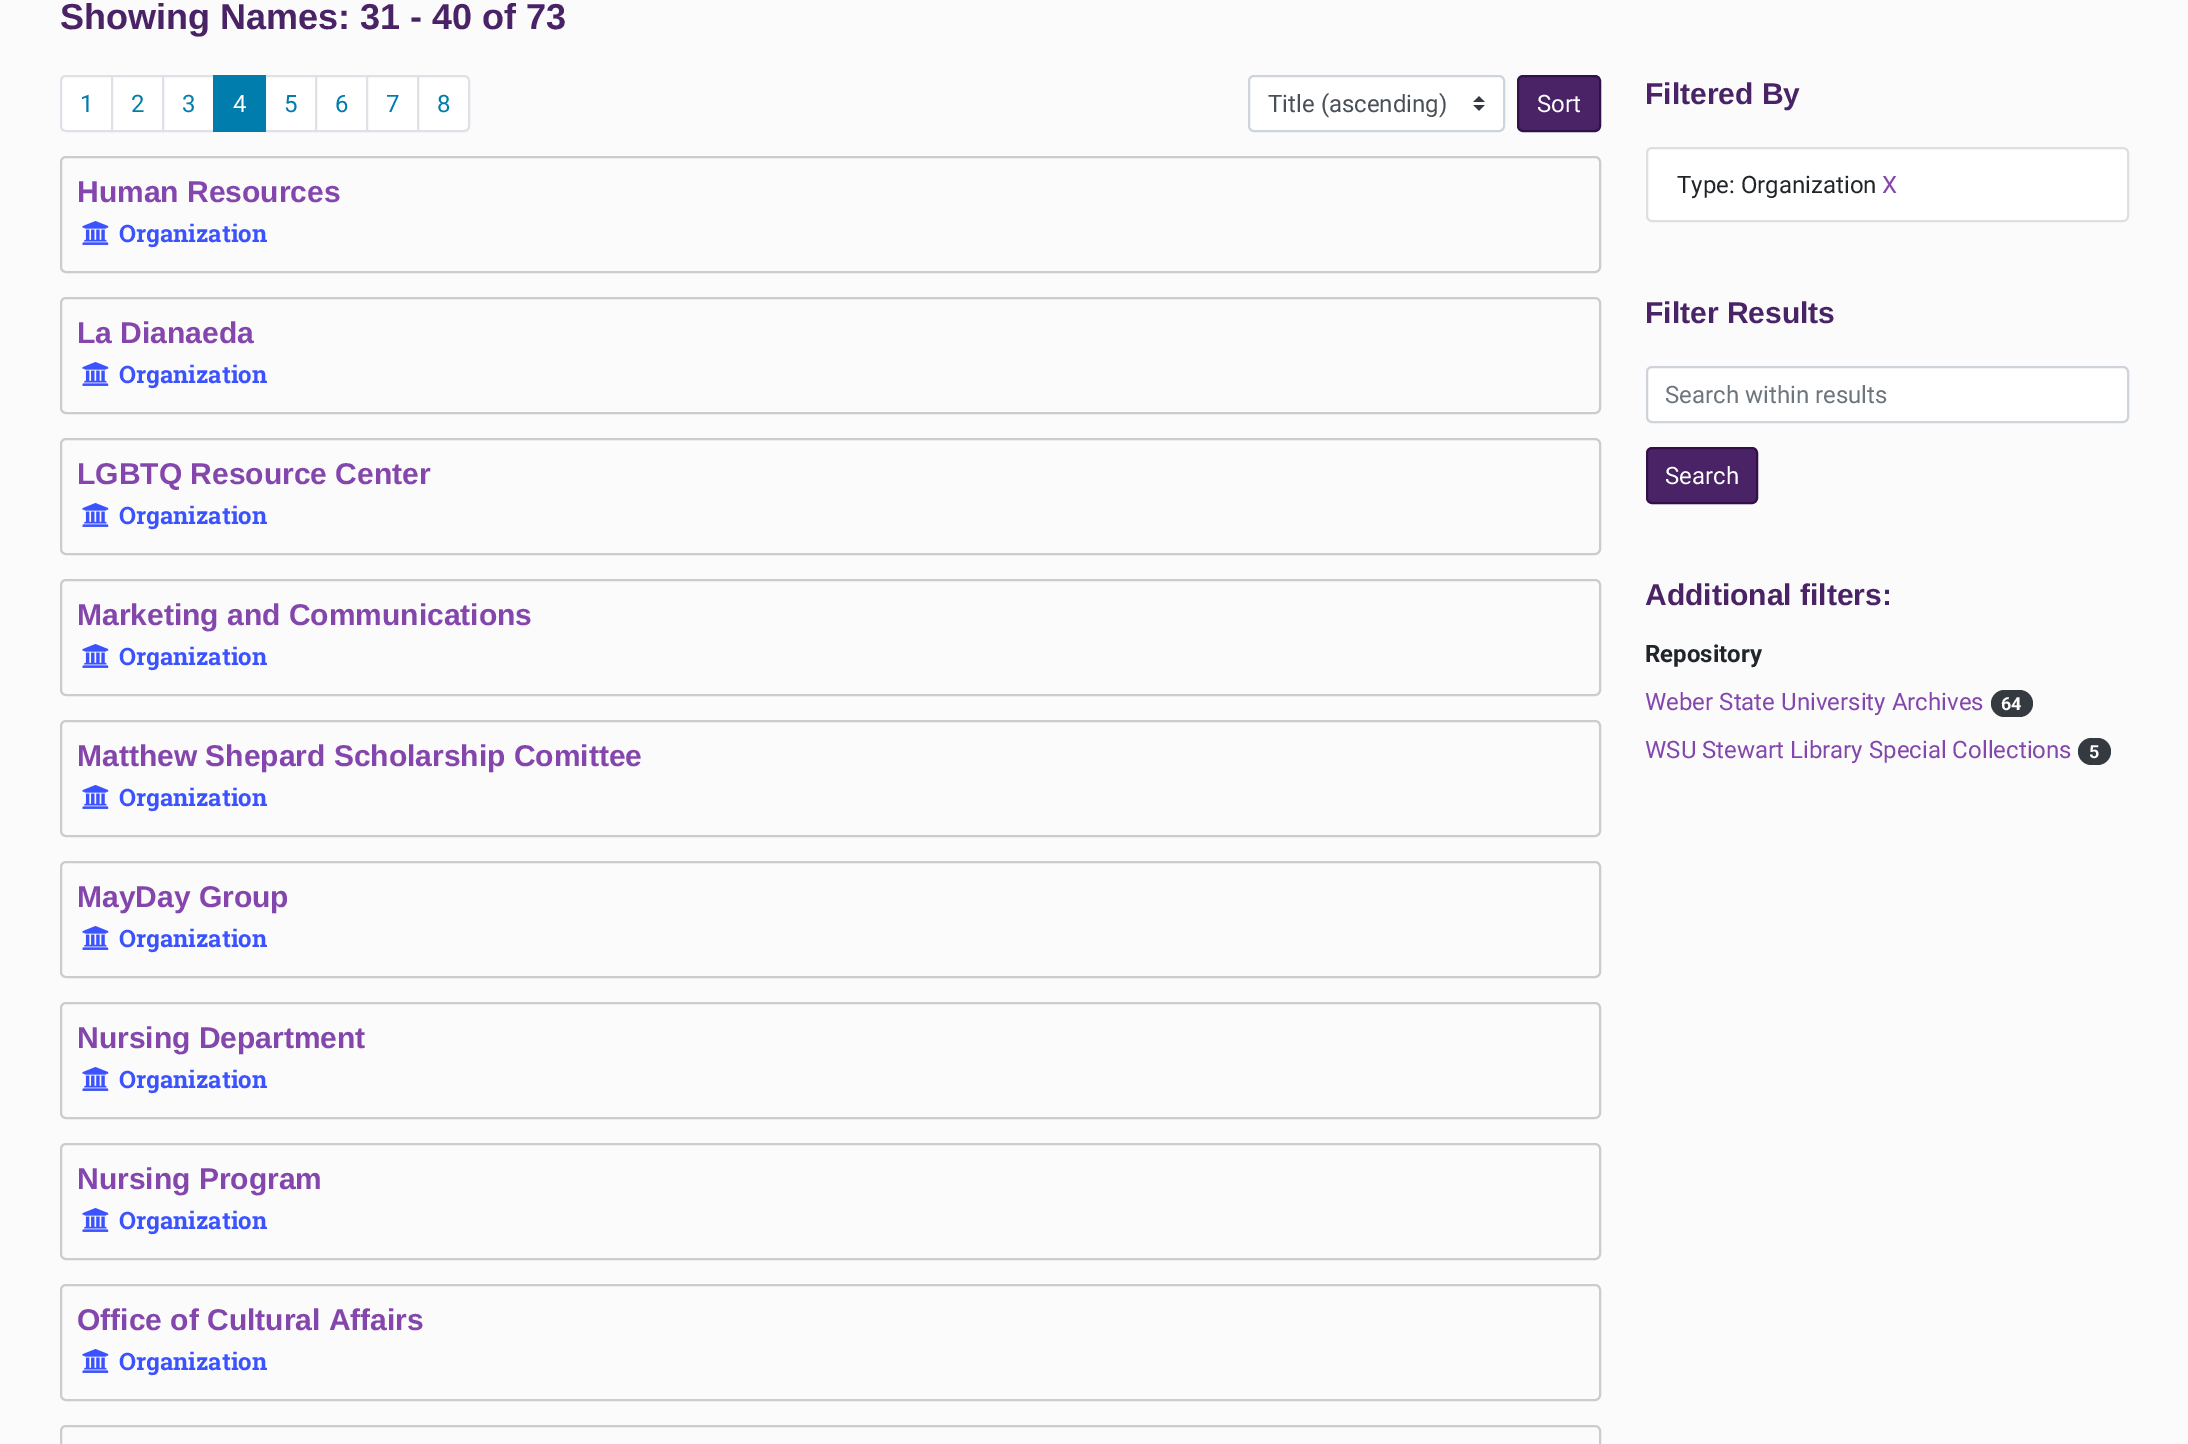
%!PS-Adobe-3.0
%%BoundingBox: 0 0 2188 1444
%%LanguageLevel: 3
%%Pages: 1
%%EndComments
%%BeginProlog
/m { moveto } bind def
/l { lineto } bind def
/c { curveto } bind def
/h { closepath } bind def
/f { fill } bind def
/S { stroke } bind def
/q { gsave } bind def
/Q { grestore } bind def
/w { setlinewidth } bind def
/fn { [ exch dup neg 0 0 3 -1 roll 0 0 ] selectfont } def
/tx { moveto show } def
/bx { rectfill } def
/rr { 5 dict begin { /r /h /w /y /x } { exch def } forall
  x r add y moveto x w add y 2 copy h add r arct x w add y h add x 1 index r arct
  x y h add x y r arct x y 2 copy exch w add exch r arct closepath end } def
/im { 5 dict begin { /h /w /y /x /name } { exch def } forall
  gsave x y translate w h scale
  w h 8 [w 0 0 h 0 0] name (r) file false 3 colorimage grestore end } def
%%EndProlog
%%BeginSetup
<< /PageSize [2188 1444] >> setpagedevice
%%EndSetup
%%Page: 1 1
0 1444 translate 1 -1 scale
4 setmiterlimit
0.984 setgray
0 0 2188 1444 bx
/LiberationSans-Bold 36 fn
0.286 0.137 0.396 setrgbcolor
(Showing Names: 31 - 40 of 73) 60 29 tx
1 setgray
66 76 m 112 76 l 112 131 l 66 131 l 63 131 61 129 61 126 c 61 81 l 61 78 63 76 66 76 c h q f Q
0.871 0.886 0.902 setrgbcolor
2 w
S
/Roboto-Regular 24 fn
0 0.486 0.678 setrgbcolor
(1) 80 112 tx
1 setgray
112 76 m 163 76 l 163 131 l 112 131 l h q f Q
0.871 0.886 0.902 setrgbcolor
S
0 0.486 0.678 setrgbcolor
(2) 131 112 tx
1 setgray
163 76 m 214 76 l 214 131 l 163 131 l h q f Q
0.871 0.886 0.902 setrgbcolor
S
0 0.486 0.678 setrgbcolor
(3) 182 112 tx
1 setgray
265 76 m 316 76 l 316 131 l 265 131 l h q f Q
0.871 0.886 0.902 setrgbcolor
S
0 0.486 0.678 setrgbcolor
213 75 53 57 bx
1 setgray
(4) 233 112 tx
0 0.486 0.678 setrgbcolor
(5) 284 112 tx
1 setgray
316 76 m 367 76 l 367 131 l 316 131 l h q f Q
0.871 0.886 0.902 setrgbcolor
S
0 0.486 0.678 setrgbcolor
(6) 335 112 tx
1 setgray
367 76 m 418 76 l 418 131 l 367 131 l h q f Q
0.871 0.886 0.902 setrgbcolor
S
0 0.486 0.678 setrgbcolor
(7) 386 112 tx
1 setgray
418 76 m 464 76 l 467 76 469 78 469 81 c 469 126 l 469 129 467 131 464 131 c 418 131 l h q f Q
0.871 0.886 0.902 setrgbcolor
S
0 0.486 0.678 setrgbcolor
(8) 437 112 tx
1 setgray
1248 75 257 57 6 rr f
(image0.raw) 1473 96 12 15 im
0.808 0.831 0.855 setrgbcolor
1249 76 255 55 5 rr S
0.286 0.314 0.341 setrgbcolor
(Title \(ascending\)) 1268 112 tx
0.286 0.137 0.396 setrgbcolor
1518 76 82 55 5 rr q f Q
0.196 0.067 0.286 setrgbcolor
S
1 setgray
(Sort) 1537 112 tx
0.8 setgray
61 157 1539 115 5 rr S
/LiberationSans-Bold 30 fn
0.518 0.275 0.675 setrgbcolor
(Human Resources) 77 202 tx
(image1.raw) 82 221 27 24 im
/RobotoSlab-Bold 24 fn
0.231 0.322 1 setrgbcolor
(Organization) 119 242 tx
0.8 setgray
61 298 1539 115 5 rr S
/LiberationSans-Bold 30 fn
0.518 0.275 0.675 setrgbcolor
(La Dianaeda) 77 343 tx
(image1.raw) 82 362 27 24 im
/RobotoSlab-Bold 24 fn
0.231 0.322 1 setrgbcolor
(Organization) 119 383 tx
0.8 setgray
61 439 1539 115 5 rr S
/LiberationSans-Bold 30 fn
0.518 0.275 0.675 setrgbcolor
(LGBTQ Resource Center) 77 484 tx
(image1.raw) 82 503 27 24 im
/RobotoSlab-Bold 24 fn
0.231 0.322 1 setrgbcolor
(Organization) 119 524 tx
0.8 setgray
61 580 1539 115 5 rr S
/LiberationSans-Bold 30 fn
0.518 0.275 0.675 setrgbcolor
(Marketing and Communications) 77 625 tx
(image1.raw) 82 644 27 24 im
/RobotoSlab-Bold 24 fn
0.231 0.322 1 setrgbcolor
(Organization) 119 665 tx
0.8 setgray
61 721 1539 115 5 rr S
/LiberationSans-Bold 30 fn
0.518 0.275 0.675 setrgbcolor
(Matthew Shepard Scholarship Comittee) 77 766 tx
(image1.raw) 82 785 27 24 im
/RobotoSlab-Bold 24 fn
0.231 0.322 1 setrgbcolor
(Organization) 119 806 tx
0.8 setgray
61 862 1539 115 5 rr S
/LiberationSans-Bold 30 fn
0.518 0.275 0.675 setrgbcolor
(MayDay Group) 77 907 tx
(image1.raw) 82 926 27 24 im
/RobotoSlab-Bold 24 fn
0.231 0.322 1 setrgbcolor
(Organization) 119 947 tx
0.8 setgray
61 1003 1539 115 5 rr S
/LiberationSans-Bold 30 fn
0.518 0.275 0.675 setrgbcolor
(Nursing Department) 77 1048 tx
(image1.raw) 82 1067 27 24 im
/RobotoSlab-Bold 24 fn
0.231 0.322 1 setrgbcolor
(Organization) 119 1088 tx
0.8 setgray
61 1144 1539 115 5 rr S
/LiberationSans-Bold 30 fn
0.518 0.275 0.675 setrgbcolor
(Nursing Program) 77 1189 tx
(image1.raw) 82 1208 27 24 im
/RobotoSlab-Bold 24 fn
0.231 0.322 1 setrgbcolor
(Organization) 119 1229 tx
0.8 setgray
61 1285 1539 115 5 rr S
/LiberationSans-Bold 30 fn
0.518 0.275 0.675 setrgbcolor
(Office of Cultural Affairs) 77 1330 tx
(image1.raw) 82 1349 27 24 im
/RobotoSlab-Bold 24 fn
0.231 0.322 1 setrgbcolor
(Organization) 119 1370 tx
0.8 setgray
61 1426 1539 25 5 rr S
/LiberationSans-Bold 30 fn
0.286 0.137 0.396 setrgbcolor
(Filtered By) 1645 104 tx
1 setgray
1647 148 481 73 5 rr q f Q
0.875 setgray
S
/Roboto-Regular 24 fn
0.129 0.145 0.161 setrgbcolor
(Type: Organization) 1677 193 tx
0.518 0.275 0.675 setrgbcolor
(X) 1882 193 tx
/LiberationSans-Bold 30 fn
0.286 0.137 0.396 setrgbcolor
(Filter Results) 1645 323 tx
1 setgray
1647 367 481 55 5 rr q f Q
0.808 0.831 0.855 setrgbcolor
S
/Roboto-Regular 24 fn
0.424 0.459 0.49 setrgbcolor
(Search within results) 1665 403 tx
0.286 0.137 0.396 setrgbcolor
1647 448 110 55 5 rr q f Q
0.196 0.067 0.286 setrgbcolor
S
1 setgray
(Search) 1665 484 tx
/LiberationSans-Bold 30 fn
0.286 0.137 0.396 setrgbcolor
(Additional filters:) 1645 605 tx
/Roboto-Bold 24 fn
0.129 0.145 0.161 setrgbcolor
(Repository) 1645 662 tx
/Roboto-Regular 24 fn
0.518 0.275 0.675 setrgbcolor
(Weber State University Archives) 1645 710 tx
0.204 0.227 0.251 setrgbcolor
1991 690 42 27 13.5 rr f
/Roboto-Bold 18 fn
1 setgray
(64) 2001 710 tx
/Roboto-Regular 24 fn
0.518 0.275 0.675 setrgbcolor
(WSU Stewart Library Special Collections) 1645 758 tx
0.204 0.227 0.251 setrgbcolor
2078 738 33 27 13.5 rr f
/Roboto-Bold 18 fn
1 setgray
(5) 2089 758 tx
showpage
%%EOF
